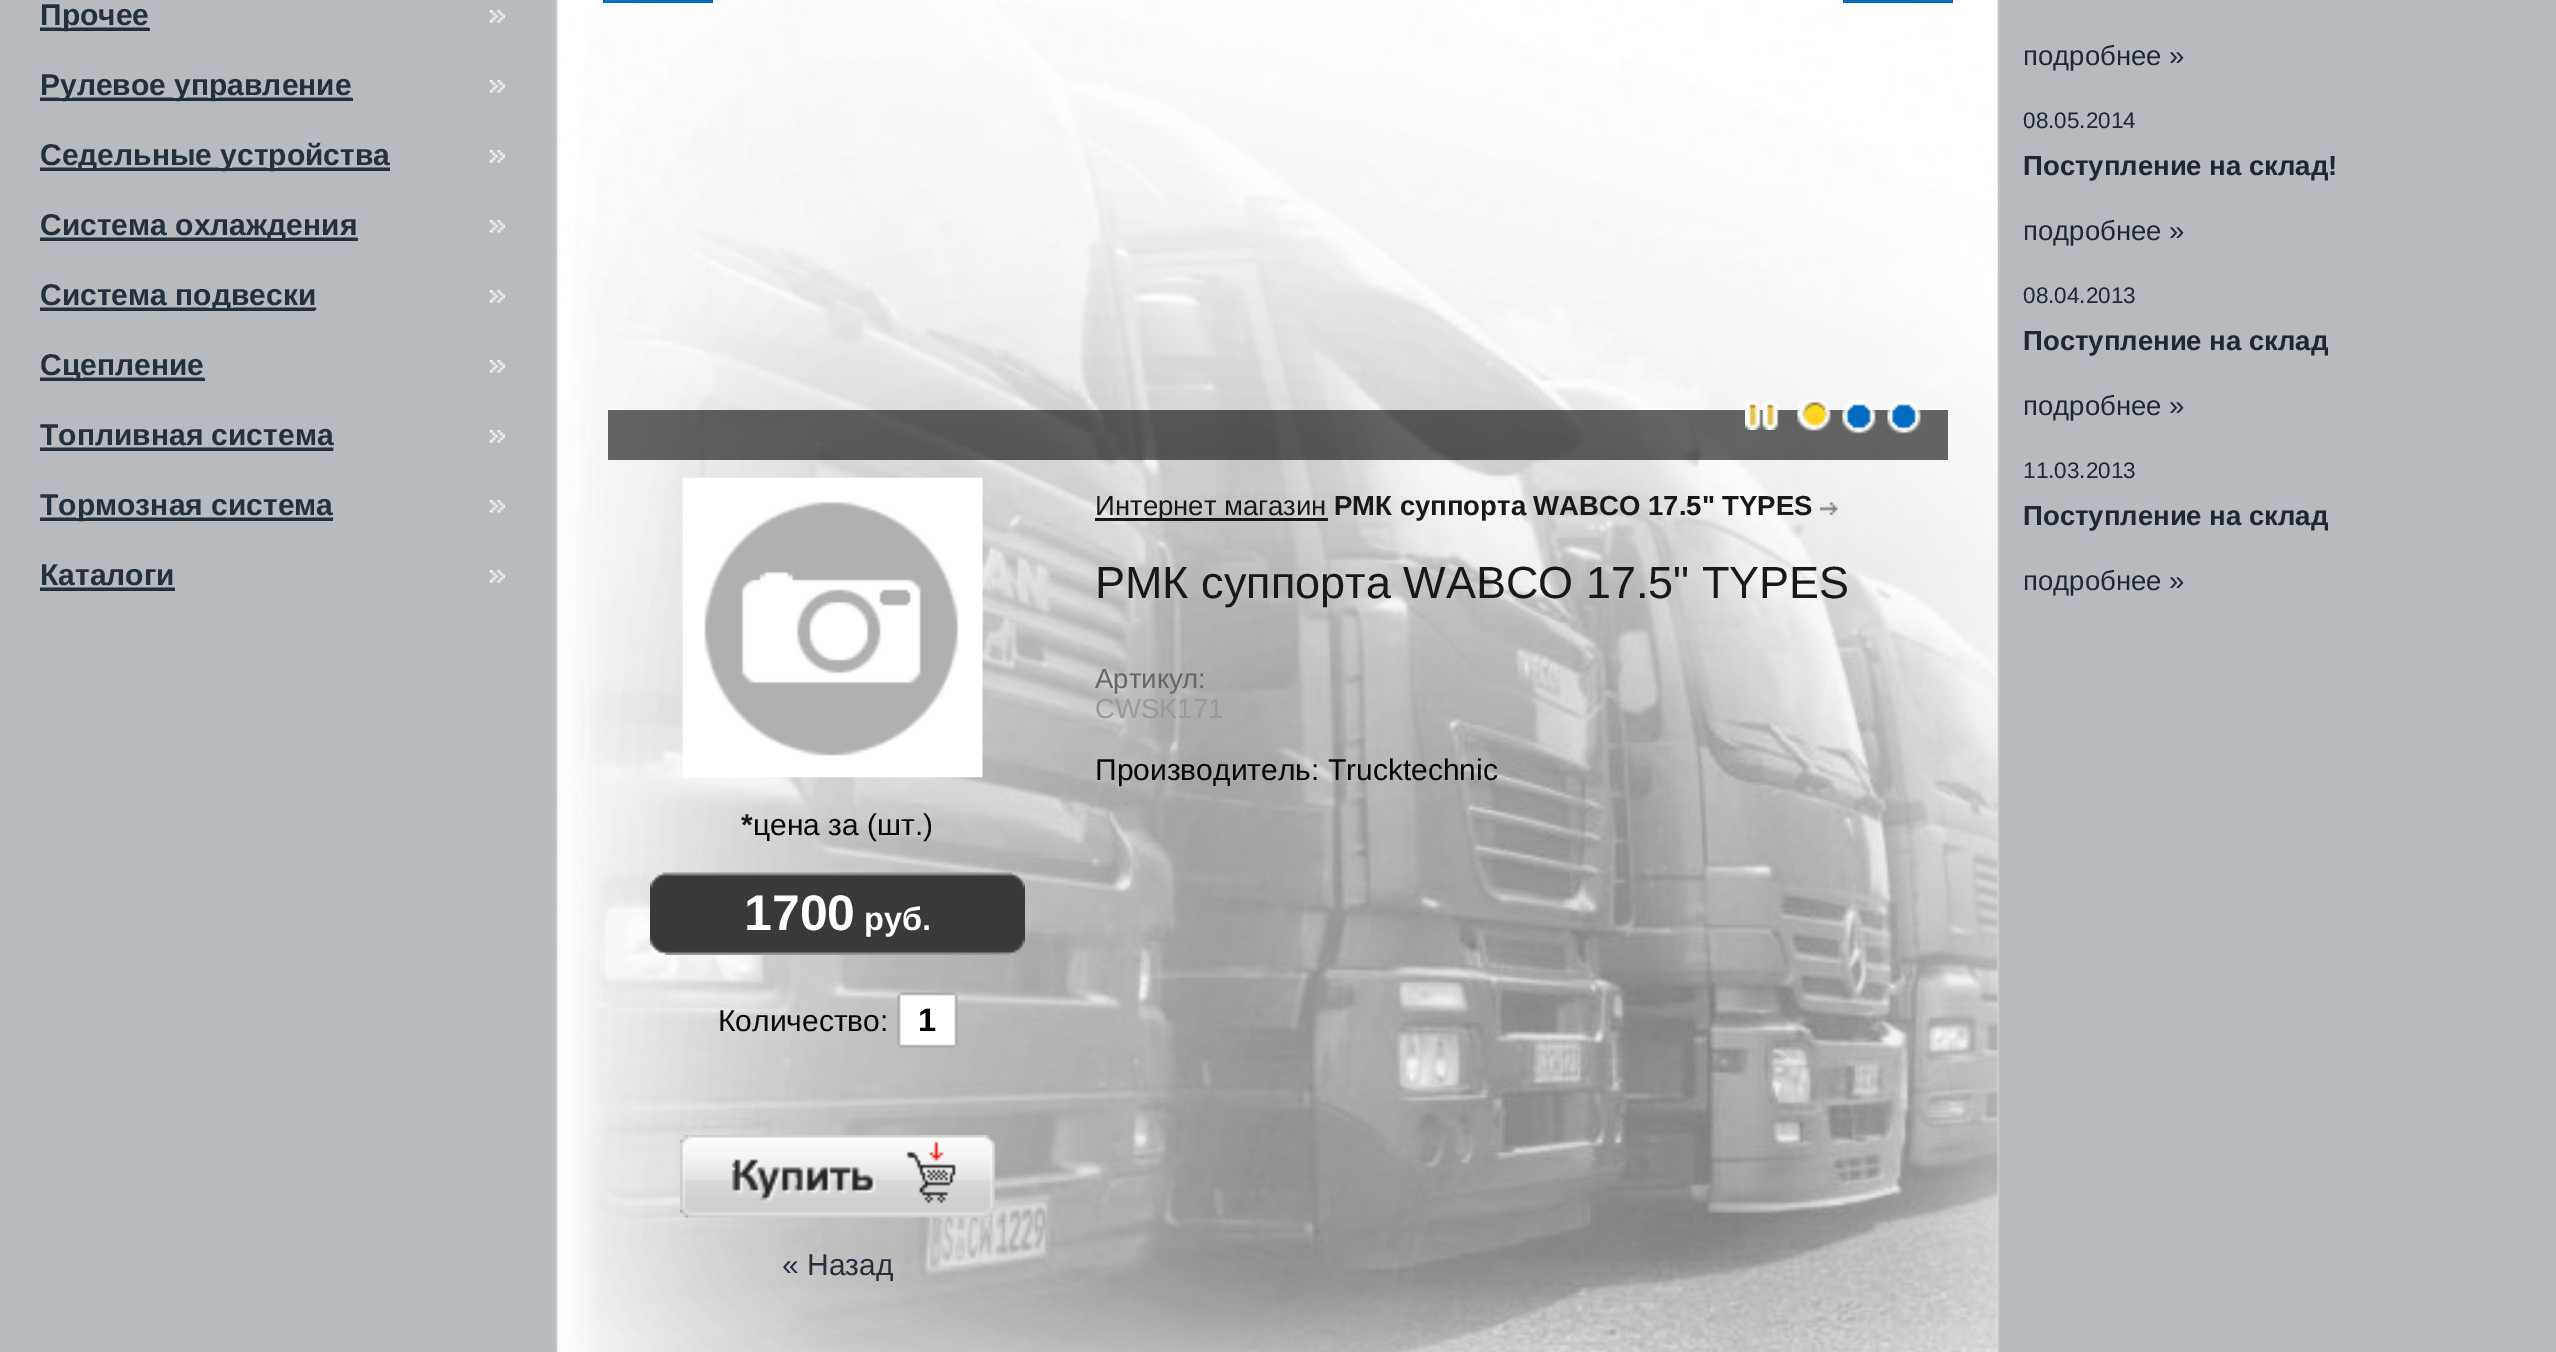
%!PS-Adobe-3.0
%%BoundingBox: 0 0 2556 1352
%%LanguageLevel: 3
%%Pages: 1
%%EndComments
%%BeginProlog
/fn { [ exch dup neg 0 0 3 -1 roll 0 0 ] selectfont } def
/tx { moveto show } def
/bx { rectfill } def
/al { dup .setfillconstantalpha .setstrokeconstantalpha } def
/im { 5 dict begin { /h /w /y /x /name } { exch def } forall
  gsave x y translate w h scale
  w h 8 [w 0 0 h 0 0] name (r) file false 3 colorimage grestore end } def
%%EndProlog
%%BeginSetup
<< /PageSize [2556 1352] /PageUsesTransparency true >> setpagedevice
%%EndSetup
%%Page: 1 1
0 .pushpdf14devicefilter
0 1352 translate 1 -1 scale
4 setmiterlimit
1 setgray
0 0 2556 1352 bx
(image0.raw) 1997 0 559 1352 im
(image1.raw) 0 0 558 1352 im
(image2.raw) 40 10 465 18 im
0.145 0.188 0.239 setrgbcolor
40 28 110 3 bx
/LiberationSans-Bold 30 fn
(Прочее) 40 25 tx
(image3.raw) 40 80 465 18 im
40 98 313 3 bx
(Рулевое управление) 40 95 tx
(image4.raw) 40 150 465 18 im
40 168 350 3 bx
(Седельные устройства) 40 165 tx
(image5.raw) 40 220 465 18 im
40 238 318 3 bx
(Система охлаждения) 40 235 tx
(image6.raw) 40 290 465 20 im
40 308 275 3 bx
(Система подвески) 40 305 tx
(image7.raw) 40 360 465 18 im
40 378 165 3 bx
(Сцепление) 40 375 tx
(image8.raw) 40 430 465 20 im
(Топливная система) 40 445 tx
40 450 293 1 bx
(image9.raw) 40 500 465 20 im
40 518 293 3 bx
(Тормозная система) 40 515 tx
(image10.raw) 40 570 465 18 im
(Каталоги) 40 585 tx
40 588 135 3 bx
/LiberationSans-Regular 27.5 fn
0.122 0.153 0.192 setrgbcolor
(подробнее ») 2023 65 tx
/LiberationSans-Regular 22.5 fn
(08.05.2014) 2023 128 tx
/LiberationSans-Bold 27.5 fn
(Поступление на склад!) 2023 175 tx
/LiberationSans-Regular 27.5 fn
(подробнее ») 2023 240 tx
/LiberationSans-Regular 22.5 fn
(08.04.2013) 2023 303 tx
/LiberationSans-Bold 27.5 fn
(Поступление на склад) 2023 350 tx
/LiberationSans-Regular 27.5 fn
(подробнее ») 2023 415 tx
/LiberationSans-Regular 22.5 fn
(11.03.2013) 2023 478 tx
/LiberationSans-Bold 27.5 fn
(Поступление на склад) 2023 525 tx
/LiberationSans-Regular 27.5 fn
(подробнее ») 2023 590 tx
(image11.raw) 557 0 1441 1352 im
0.004 0.42 0.765 setrgbcolor
603 0 110 3 bx
(image12.raw) 605 0 52 1 im
1843 0 110 3 bx
(image13.raw) 1898 0 53 1 im
0.6 al
0 setgray
608 410 1340 50 bx
1 al
(image14.raw) 1745 400 34 30 im
(image15.raw) 1797 400 34 31 im
(image16.raw) 1842 400 34 34 im
(image17.raw) 1887 400 34 34 im
0.094 setgray
1095 518 233 3 bx
(Интернет магазин) 1095 515 tx
/LiberationSans-Bold 27.5 fn
(РМК суппорта WABCO 17.5" TYPES) 1334 515 tx
(image18.raw) 1820 502 18 13 im
/LiberationSans-Regular 45 fn
(РМК суппорта WABCO 17.5" TYPES) 1095 598 tx
/LiberationSans-Regular 27.5 fn
0.4 setgray
(Артикул:) 1095 688 tx
0.6 setgray
(CWSK171) 1095 718 tx
/LiberationSans-Regular 30 fn
0.031 setgray
(Производитель: Trucktechnic) 1095 780 tx
(image19.raw) 682 477 301 301 im
/LiberationSans-Bold 30 fn
0.094 setgray
(*) 741 835 tx
/LiberationSans-Regular 30 fn
0.031 setgray
(цена за \(шт.\)) 753 835 tx
(image20.raw) 650 872 375 83 im
/LiberationSans-Bold 50 fn
1 setgray
(1700) 744 930 tx
/LiberationSans-Bold 32.5 fn
(руб.) 864 930 tx
/LiberationSans-Regular 30 fn
0.031 setgray
(Количество:) 718 1031 tx
(image21.raw) 897 992 61 56 im
/LiberationSans-Bold 32.5 fn
0 setgray
(1) 918 1031 tx
(image22.raw) 680 1135 315 83 im
/LiberationSans-Regular 30 fn
0.145 0.188 0.239 setrgbcolor
(« Назад) 782 1275 tx
.poppdf14devicefilter showpage
%%EOF
